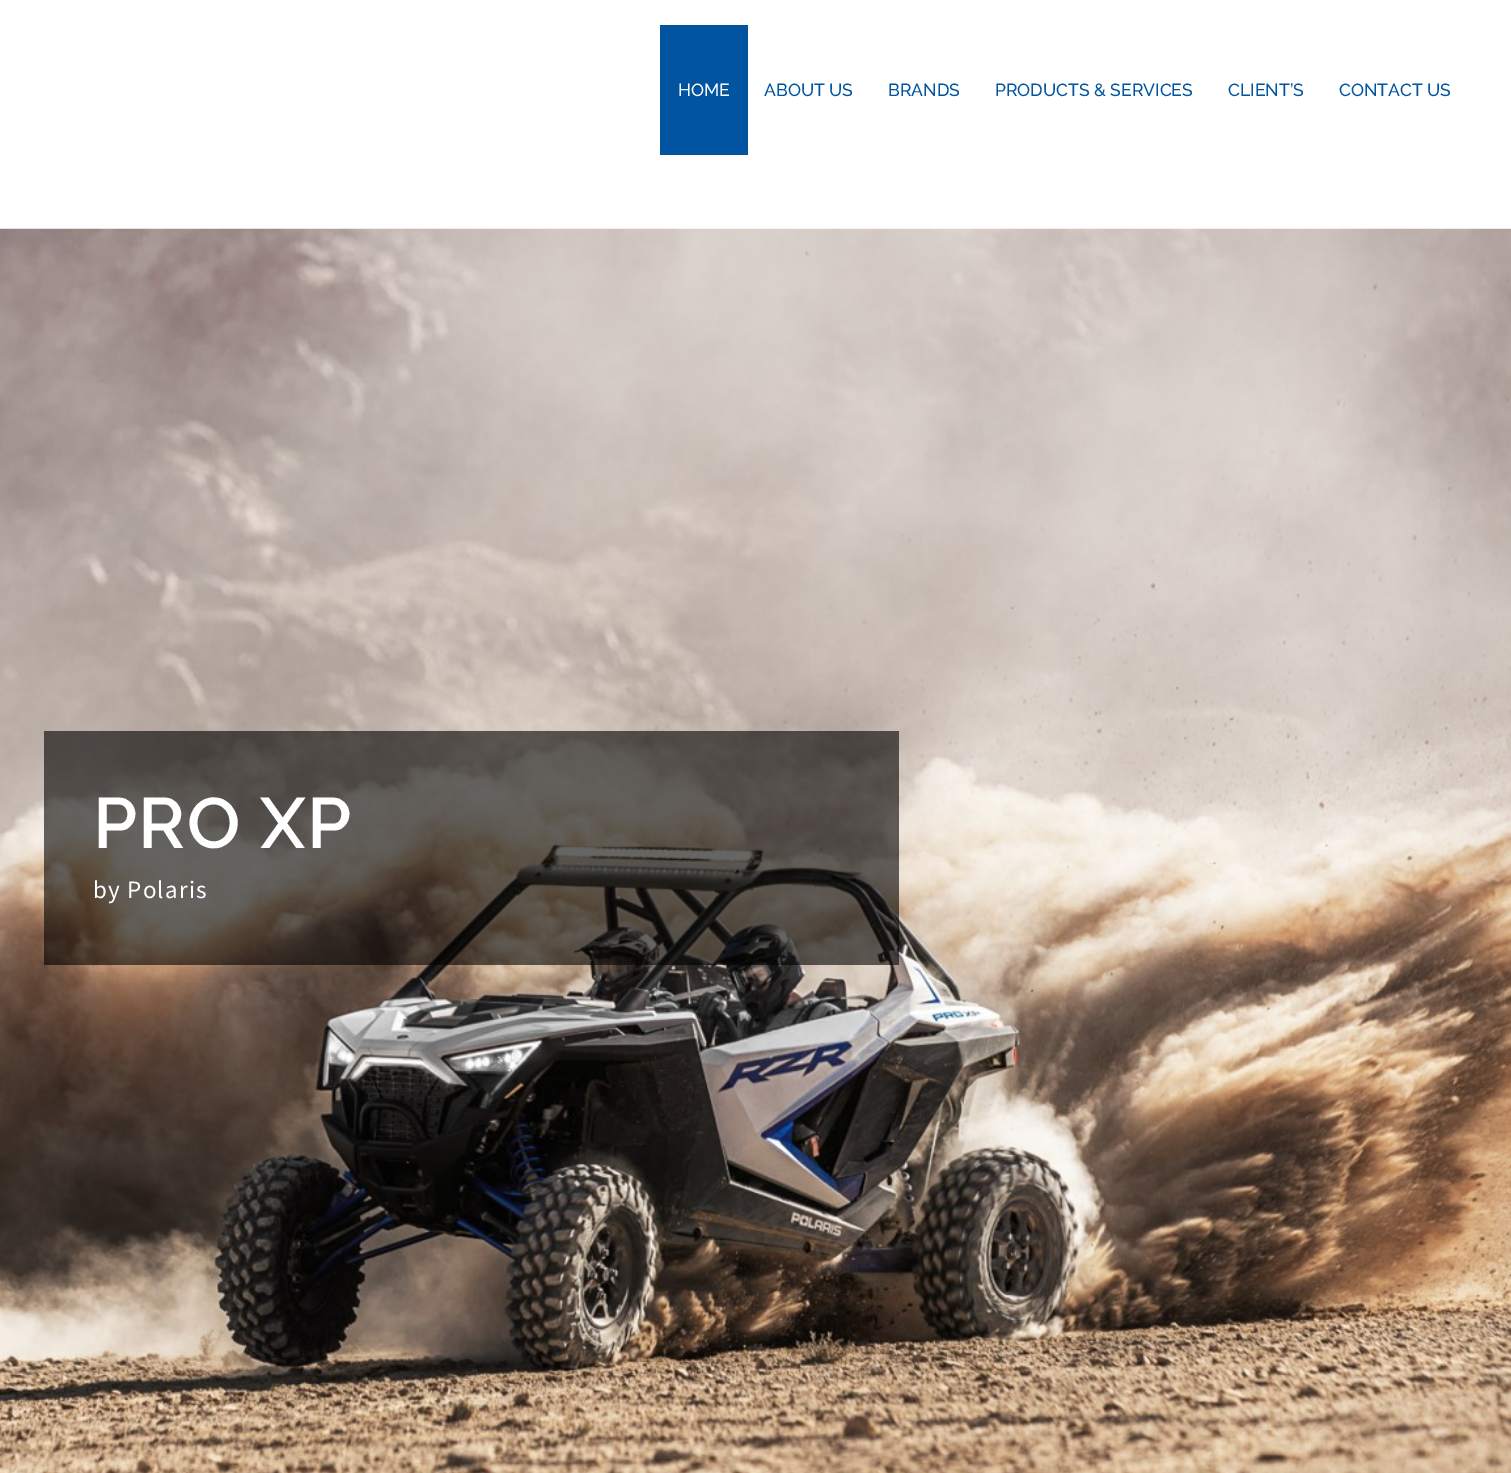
%!PS-Adobe-3.0
%%BoundingBox: 0 0 1511 1473
%%LanguageLevel: 3
%%Pages: 1
%%EndComments
%%BeginProlog
/m { moveto } bind def
/fn { [ exch dup neg 0 0 3 -1 roll 0 0 ] selectfont } def
/tx { moveto show } def
/bx { rectfill } def
/al { dup .setfillconstantalpha .setstrokeconstantalpha } def
/im { 5 dict begin { /h /w /y /x /name } { exch def } forall
  gsave x y translate w h scale
  w h 8 [w 0 0 h 0 0] name (r) file false 3 colorimage grestore end } def
%%EndProlog
%%BeginSetup
<< /PageSize [1511 1473] /PageUsesTransparency true >> setpagedevice
%%EndSetup
%%Page: 1 1
0 .pushpdf14devicefilter
0 1473 translate 1 -1 scale
4 setmiterlimit
1 setgray
0 0 1511 1473 bx
0 0.329 0.627 setrgbcolor
660 25 88 130 bx
/Raleway-Medium 17.5 fn
1 setgray
(HOME) 678 96 tx
0 0.329 0.627 setrgbcolor
(ABOUT US) 764 96 tx
(BRANDS) 888 96 tx
(PRODUCTS & SERVICES) 995 96 tx
(CLIENT’S) 1228 96 tx
(CONTACT US) 1339 96 tx
(image0.raw) 0 228 1511 1245 im
0.6 al
0 setgray
44 731 855 134 bx
/Raleway-SemiBold 71 fn
1 al
1 setgray
93 848 m 1.25 0 (PRO XP) ashow
0.6 al
0 setgray
44 865 855 100 bx
/SourceSansPro-Regular 25 fn
1 al
1 setgray
93 898 m 1.25 0 (by Polaris) ashow
.poppdf14devicefilter showpage
%%EOF
